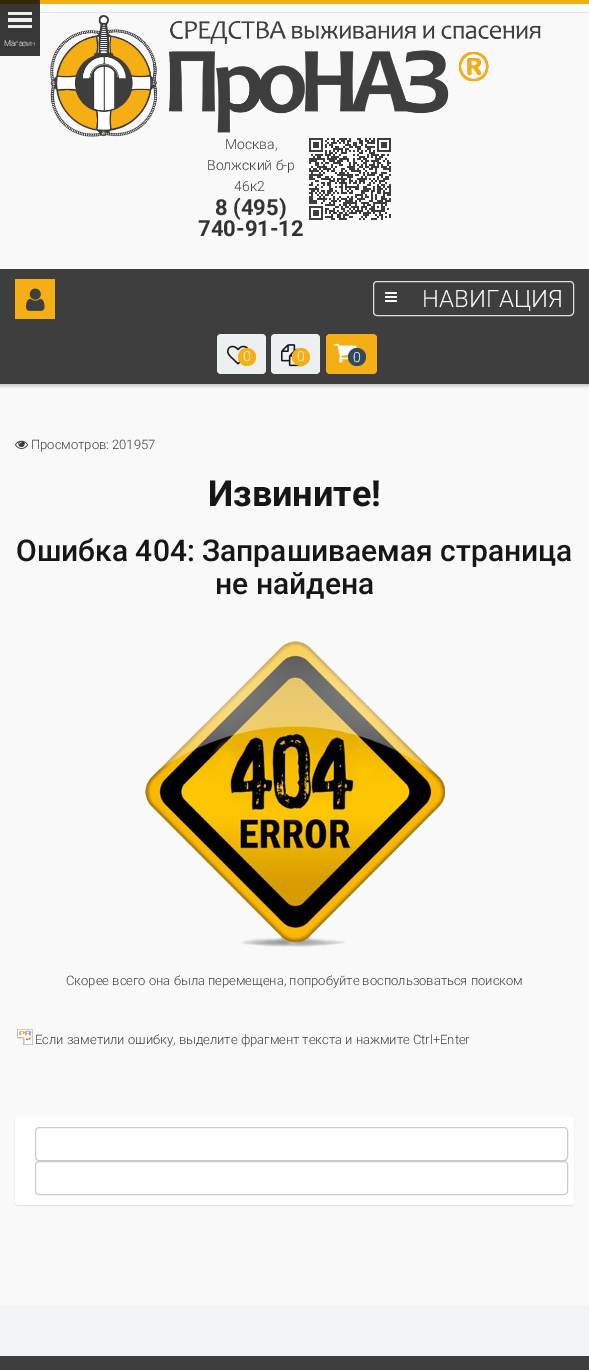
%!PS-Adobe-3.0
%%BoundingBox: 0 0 589 1370
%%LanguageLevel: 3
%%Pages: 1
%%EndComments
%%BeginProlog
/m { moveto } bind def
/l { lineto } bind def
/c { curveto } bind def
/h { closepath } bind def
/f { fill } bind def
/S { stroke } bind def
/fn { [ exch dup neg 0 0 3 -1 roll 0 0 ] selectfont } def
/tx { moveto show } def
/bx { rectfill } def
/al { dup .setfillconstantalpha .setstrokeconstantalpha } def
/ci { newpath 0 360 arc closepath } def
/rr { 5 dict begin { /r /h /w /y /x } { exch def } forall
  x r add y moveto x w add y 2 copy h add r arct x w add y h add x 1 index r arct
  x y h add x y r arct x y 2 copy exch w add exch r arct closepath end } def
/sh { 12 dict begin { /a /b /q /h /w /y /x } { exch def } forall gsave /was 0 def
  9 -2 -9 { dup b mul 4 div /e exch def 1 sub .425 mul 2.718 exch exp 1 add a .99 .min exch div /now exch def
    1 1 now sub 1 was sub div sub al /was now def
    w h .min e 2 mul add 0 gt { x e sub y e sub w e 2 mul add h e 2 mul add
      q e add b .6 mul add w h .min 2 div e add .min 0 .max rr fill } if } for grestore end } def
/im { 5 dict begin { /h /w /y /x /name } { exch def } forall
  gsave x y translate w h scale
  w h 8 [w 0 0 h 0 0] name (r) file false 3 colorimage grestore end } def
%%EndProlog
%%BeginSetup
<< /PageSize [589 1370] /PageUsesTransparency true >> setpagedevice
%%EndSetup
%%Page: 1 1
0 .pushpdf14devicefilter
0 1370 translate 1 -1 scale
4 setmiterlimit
0.949 0.957 0.961 setrgbcolor
0 0 589 1370 bx
0.196 0.2 0.2 setrgbcolor
0 12 40 1 bx
0.976 setgray
0 384 589 921 bx
0 setgray
0 271 589 115 0 1.5 0.2 sh
0.976 setgray
0 13 589 256 bx
0.216 setgray
0 13 40 43 bx
0.933 setgray
8 12 24 3 bx
8 18 24 4 bx
8 25 24 3 bx
/Roboto-Light 8 fn
0.439 setgray
(Блоги) 9 46 tx
0.933 setgray
(Магазин) 4 46 tx
0.98 0.984 0.984 setrgbcolor
40 4 549 8 bx
0.216 setgray
0 4 40 8 bx
0.961 0.682 0.078 setrgbcolor
40 0 549 4 bx
0.212 0.153 0.016 setrgbcolor
0 0 40 4 bx
0.886 0.902 0.906 setrgbcolor
40 12 549 1 bx
(image0.raw) 50 15 491 122 im
/Roboto-Light 14 fn
0.243 setgray
(Москва,) 225 149 tx
(Волжский б-р) 207 170 tx
(46к2) 234 191 tx
/Roboto-Bold 22 fn
0.2 setgray
(8 \(495\)) 215 215 tx
(740-91-12) 198 236 tx
(image1.raw) 309 138 82 82 im
0.243 setgray
0 269 589 115 bx
0.961 0.682 0.078 setrgbcolor
15 279 40 40 bx
(image2.raw) 26 288 19 23 im
0.867 setgray
373.5 281.5 200 34 3.5 rr S
(image3.raw) 385 292 12 10 im
/Roboto-Light 24 fn
1 setgray
(НАВИГАЦИЯ) 422 307 tx
0.925 0.941 0.945 setrgbcolor
217 334 49 40 4 rr f
(image4.raw) 227 345 22 20 im
0.961 0.682 0.078 setrgbcolor
247 357 9 ci f
/Roboto-Light 14 fn
1 setgray
(0) 243 361 tx
0.925 0.941 0.945 setrgbcolor
271 334 49 40 4 rr f
(image5.raw) 281 344 22 23 im
0.961 0.682 0.078 setrgbcolor
301 357 9 ci f
1 setgray
(0) 297 361 tx
0.961 0.682 0.078 setrgbcolor
326 334 51 40 4 rr f
(image6.raw) 334 343 23 20 im
0.204 0.286 0.369 setrgbcolor
357 357 9 ci f
1 setgray
(0) 353 362 tx
(image7.raw) 15 440 13 9 im
/Roboto-Light 13 fn
0.243 setgray
(Просмотров: 201957) 31 449 tx
/Roboto-Bold 36 fn
0.086 setgray
(Извините!) 208 506 tx
/Roboto-Medium 30 fn
(Ошибка 404: Запрашиваемая страница) 16 561 tx
(не найдена) 215 594 tx
(image8.raw) 145 641 300 306 im
/Roboto-Light 13 fn
0.243 setgray
(Скорее всего она была перемещена, попробуйте воспользоваться поиском) 66 985 tx
(image9.raw) 17 1029 16 16 im
(Если заметили ошибку, выделите фрагмент текста и нажмите Ctrl+Enter) 35 1044 tx
0 setgray
15 1118 559 88 3 0.5 0.1 sh
1 setgray
15 1117 m 574 1117 l 574 1202 l 574 1203.5 572.5 1205 571 1205 c 18 1205 l 16.5 1205 15 1203.5 15 1202 c h f
0.8 setgray
35.5 1127.5 532 33 3.5 rr S
35.5 1161.5 532 33 3.5 rr S
0.243 setgray
0 1356 589 14 bx
.poppdf14devicefilter showpage
%%EOF
